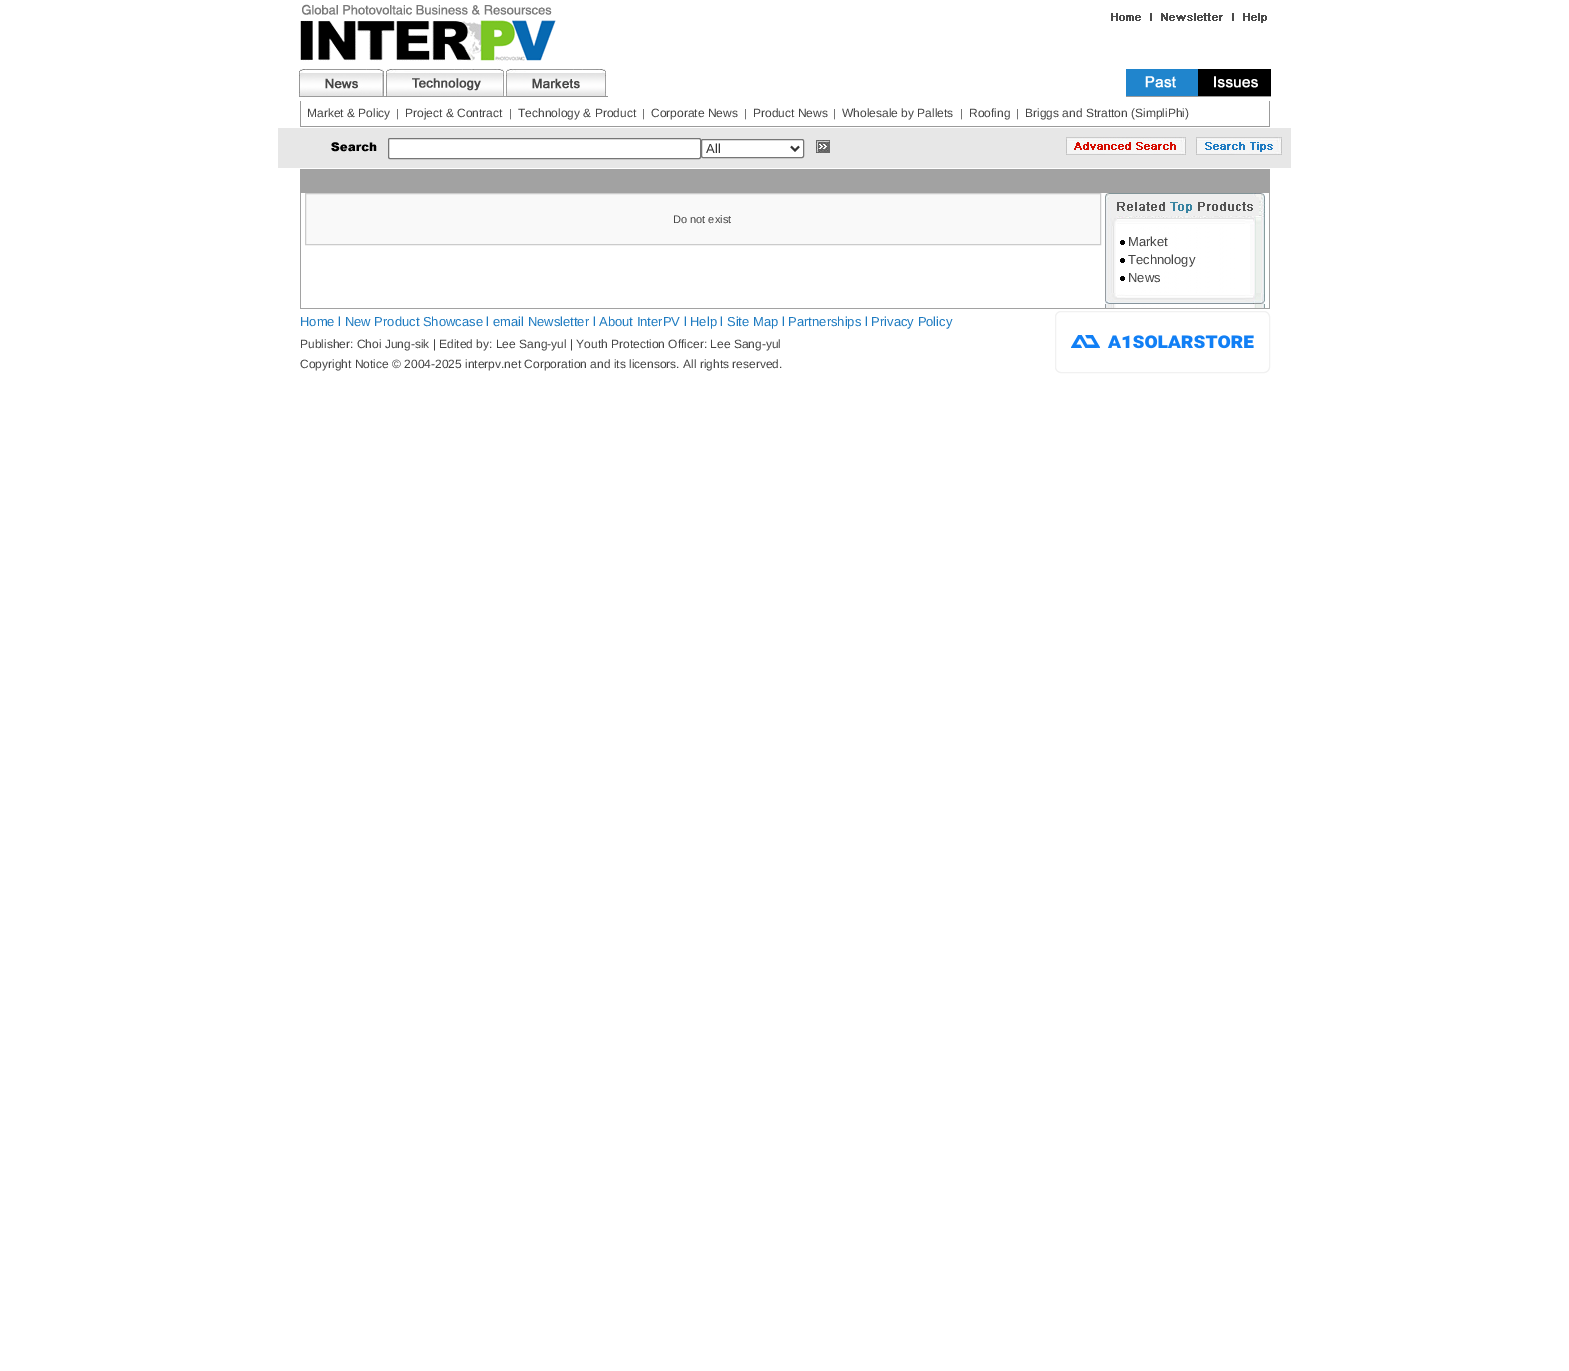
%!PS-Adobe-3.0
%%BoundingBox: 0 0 1569 1371
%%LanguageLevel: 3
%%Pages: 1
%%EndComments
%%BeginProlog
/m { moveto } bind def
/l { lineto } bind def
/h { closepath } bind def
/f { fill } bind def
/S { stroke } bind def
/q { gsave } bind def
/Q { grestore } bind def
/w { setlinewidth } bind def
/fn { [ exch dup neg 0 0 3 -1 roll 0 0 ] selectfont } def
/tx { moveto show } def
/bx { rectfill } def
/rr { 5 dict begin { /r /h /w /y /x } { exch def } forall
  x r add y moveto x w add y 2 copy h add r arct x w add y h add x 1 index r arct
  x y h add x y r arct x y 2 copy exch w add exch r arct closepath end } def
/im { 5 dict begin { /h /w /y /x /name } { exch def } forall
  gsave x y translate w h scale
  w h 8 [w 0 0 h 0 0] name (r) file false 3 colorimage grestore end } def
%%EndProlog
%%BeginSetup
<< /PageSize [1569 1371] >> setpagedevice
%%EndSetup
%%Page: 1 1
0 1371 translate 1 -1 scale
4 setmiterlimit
1 setgray
0 0 1569 1371 bx
(image0.raw) 300 4 256 57 im
(image1.raw) 1111 13 41 8 im
(image2.raw) 1161 13 73 8 im
(image3.raw) 1243 13 24 10 im
(image4.raw) 299 69 87 28 im
(image5.raw) 386 69 120 28 im
(image6.raw) 506 69 102 28 im
(image7.raw) 1126 69 145 28 im
0.608 setgray
1269 101 1 26 bx
300 126 970 1 bx
300 101 1 26 bx
/LiberationSans-Regular 12 fn
0.267 setgray
(Market & Policy) 307 117 tx
/LiberationSans-Regular 11 fn
(|) 396 117 tx
/LiberationSans-Regular 12 fn
(Project & Contract) 405 117 tx
/LiberationSans-Regular 11 fn
(|) 509 117 tx
/LiberationSans-Regular 12 fn
(Technology & Product) 518 117 tx
/LiberationSans-Regular 11 fn
(|) 642 117 tx
/LiberationSans-Regular 12 fn
(Corporate News) 651 117 tx
/LiberationSans-Regular 11 fn
(|) 744 117 tx
/LiberationSans-Regular 12 fn
(Product News) 753 117 tx
/LiberationSans-Regular 11 fn
(|) 833 117 tx
/LiberationSans-Regular 12 fn
(Wholesale by Pallets) 842 117 tx
/LiberationSans-Regular 11 fn
(|) 960 117 tx
/LiberationSans-Regular 12 fn
(Roofing) 969 117 tx
/LiberationSans-Regular 11 fn
(|) 1016 117 tx
/LiberationSans-Regular 12 fn
(Briggs and Stratton \(SimpliPhi\)) 1025 117 tx
0.906 setgray
278 128 1013 40 bx
(image8.raw) 331 142 46 10 im
1 setgray
388.5 138.5 312 20 1.5 rr q f Q
0.463 setgray
S
1 setgray
701.5 139.5 102 18 1.5 rr q f Q
0.463 setgray
S
0.2 setgray
2 w
791 146.5 m 795 150.5 l 799 146.5 l S
/LiberationSans-Regular 13 fn
(All) 706 153 tx
(image9.raw) 816 140 14 13 im
(image10.raw) 1066 137 120 18 im
(image11.raw) 1196 137 86 18 im
0.635 setgray
300 169 970 24 bx
1269 193 1 115 bx
300 193 1 115 bx
0.976 setgray
305.5 193.5 m 1100.5 193.5 l 1100.5 244.5 l 305.5 244.5 l h q f Q
0.796 setgray
1 w
S
/LiberationSans-Regular 11 fn
0.267 setgray
(Do not exist) 673 223 tx
(image12.raw) 1105 226 160 82 im
(image13.raw) 1105 193 160 33 im
(image14.raw) 1120 240 5 5 im
/LiberationSans-Regular 13 fn
(Market) 1128 246 tx
(image14.raw) 1120 258 5 5 im
(Technology) 1128 264 tx
(image14.raw) 1120 276 5 5 im
(News) 1128 282 tx
(image15.raw) 1105 293 160 11 im
0.635 setgray
300 308 970 1 bx
0.118 0.482 0.757 setrgbcolor
(Home l New Product Showcase l email Newsletter l About InterPV l Help l Site Map l Partnerships l Privacy Policy) 300 326 tx
0.945 setgray
1055.5 311.5 214 61 5.5 rr S
(image16.raw) 1071 335 183 14 im
/LiberationSans-Regular 12 fn
0.267 setgray
(Publisher: Choi Jung-sik | Edited by: Lee Sang-yul | Youth Protection Officer: Lee Sang-yul) 300 348 tx
(Copyright Notice © 2004-2025 interpv.net Corporation and its licensors. All rights reserved.) 300 368 tx
showpage
%%EOF
